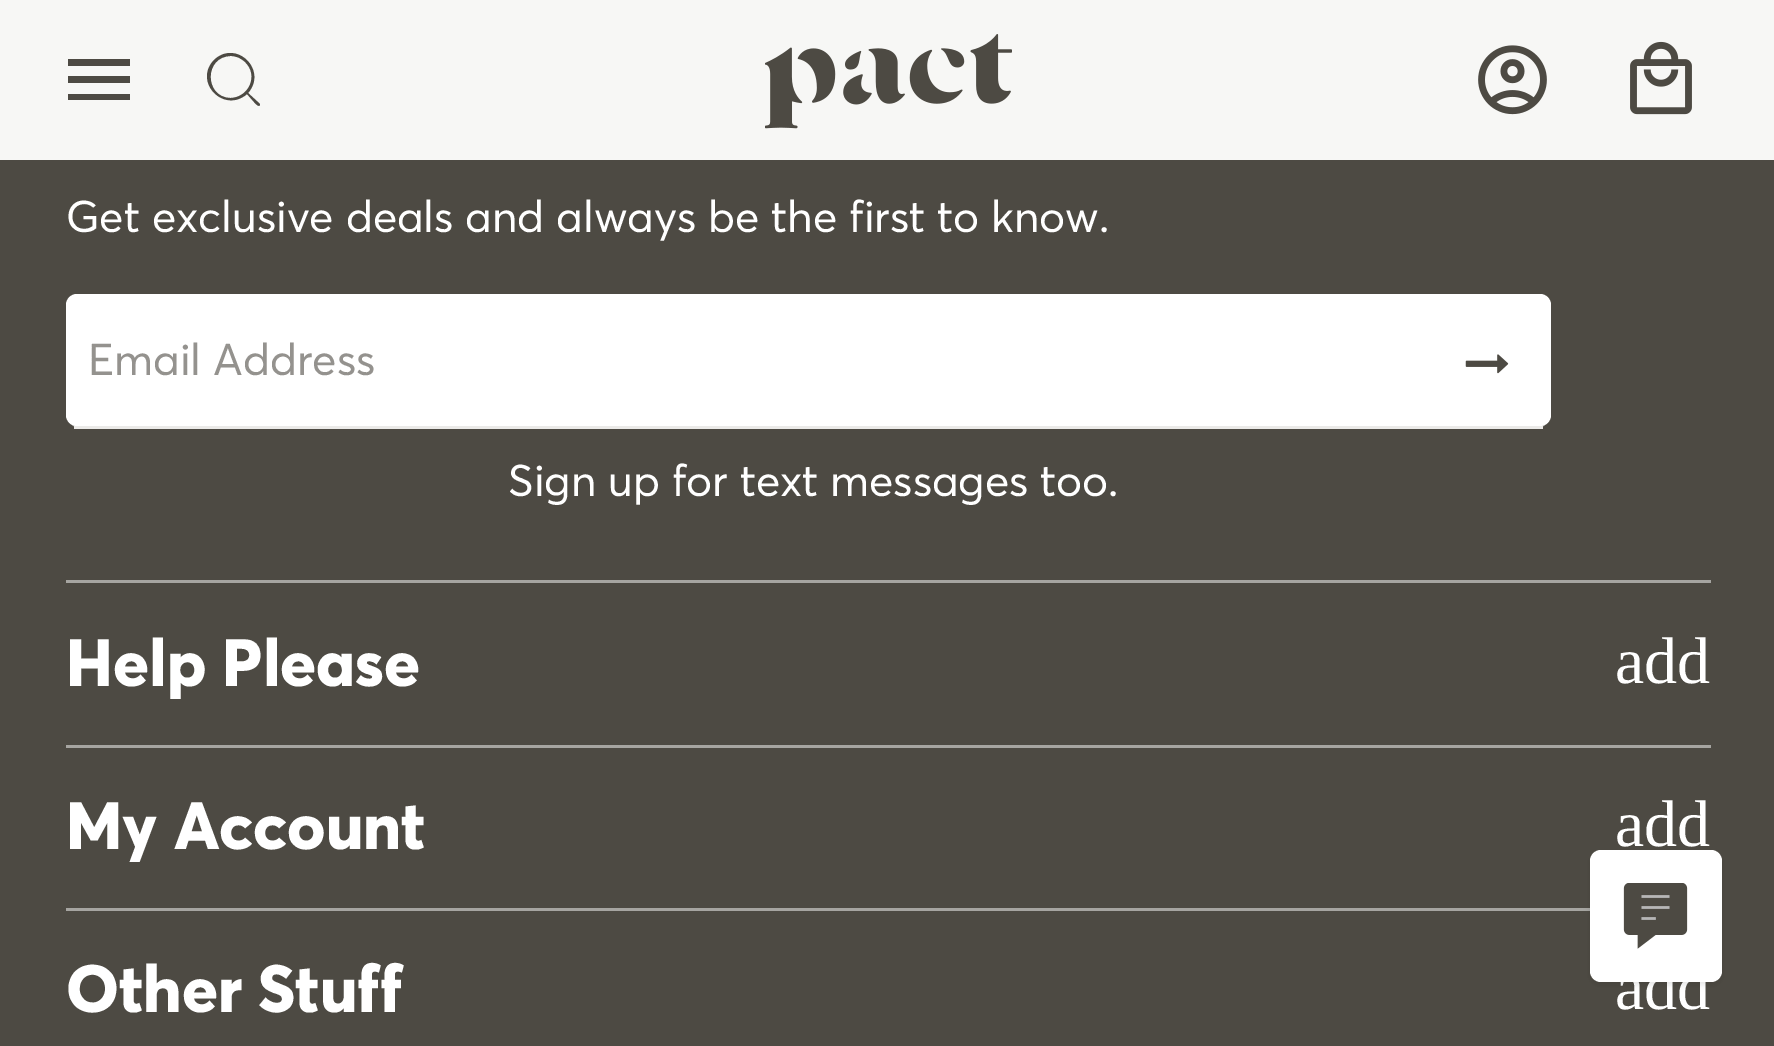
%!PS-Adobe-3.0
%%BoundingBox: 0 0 1774 1046
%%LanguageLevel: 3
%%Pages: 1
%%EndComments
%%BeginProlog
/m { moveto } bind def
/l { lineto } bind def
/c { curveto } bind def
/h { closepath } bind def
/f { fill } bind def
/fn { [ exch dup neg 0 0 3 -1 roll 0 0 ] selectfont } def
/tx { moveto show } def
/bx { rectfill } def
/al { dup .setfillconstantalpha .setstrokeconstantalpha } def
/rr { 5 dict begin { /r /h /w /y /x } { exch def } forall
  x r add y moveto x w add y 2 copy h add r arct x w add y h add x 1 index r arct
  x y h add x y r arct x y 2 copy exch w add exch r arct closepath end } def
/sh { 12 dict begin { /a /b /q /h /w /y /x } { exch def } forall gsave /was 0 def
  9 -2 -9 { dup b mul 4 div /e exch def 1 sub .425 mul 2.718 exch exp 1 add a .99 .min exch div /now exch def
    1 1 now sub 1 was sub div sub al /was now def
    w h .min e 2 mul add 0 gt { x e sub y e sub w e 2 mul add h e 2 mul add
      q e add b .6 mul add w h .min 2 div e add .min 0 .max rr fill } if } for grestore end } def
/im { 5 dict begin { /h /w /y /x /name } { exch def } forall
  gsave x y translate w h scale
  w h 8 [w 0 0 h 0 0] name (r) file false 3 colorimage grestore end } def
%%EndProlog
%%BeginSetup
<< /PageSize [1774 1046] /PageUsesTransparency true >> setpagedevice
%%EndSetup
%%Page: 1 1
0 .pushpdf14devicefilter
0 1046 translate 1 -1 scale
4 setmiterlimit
0.302 0.29 0.263 setrgbcolor
0 0 1774 1046 bx
0.969 0.969 0.961 setrgbcolor
0 0 1774 160 bx
0.302 0.29 0.263 setrgbcolor
68 100 m 68 94 l 130 94 l 130 100 l h 68 83 m 68 76 l 130 76 l 130 83 l h 68 66 m 68 59 l 130 59 l 130 66 l h f
231 56 m 204 56 204 97 230 98 c 249 98 259 75 245 62 c 241 58 236 56 231 56 c h 248 93 m 268 70 236 39 214 60 c 193 82 224 114 247 94 c 254 102 l 254 102 259 108 260 105 c 260 104 l h eofill
(image0.raw) 765 34 247 95 im
(image1.raw) 1478 45 69 70 im
(image2.raw) 1630 41 62 74 im
/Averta-Regular 44 fn
1 setgray
(Get exclusive deals and always be the first to know.) 66 232 tx
0.651 0.647 0.631 setrgbcolor
66 294 1485 135 17 rr f
0.922 0.918 0.91 setrgbcolor
74 426 1469 3 bx
1 setgray
66 294 1485 132 11 rr f
0.58 0.573 0.557 setrgbcolor
(Email Address) 88 375 tx
(image3.raw) 1465 354 44 20 im
1 setgray
(Sign up for text messages too.) 508 496 tx
0.651 0.647 0.631 setrgbcolor
66 580 1645 3 bx
/Averta-ExtraBold 66 fn
1 setgray
(Help Please) 66 686 tx
/LiberationSerif-Regular 66 fn
(add) 1615 683 tx
0.651 0.647 0.631 setrgbcolor
66 745 1645 3 bx
/Averta-ExtraBold 66 fn
1 setgray
(My Account) 66 849 tx
/LiberationSerif-Regular 66 fn
(add) 1615 846 tx
0.651 0.647 0.631 setrgbcolor
66 908 1524 3 bx
/Averta-ExtraBold 66 fn
1 setgray
(Other Stuff) 66 1012 tx
/LiberationSerif-Regular 66 fn
(add) 1615 1009 tx
0 setgray
1590 853 132 132 11 3 0.1 sh
1 setgray
1590 850 132 132 11 rr f
(image4.raw) 1623 883 65 66 im
.poppdf14devicefilter showpage
%%EOF
